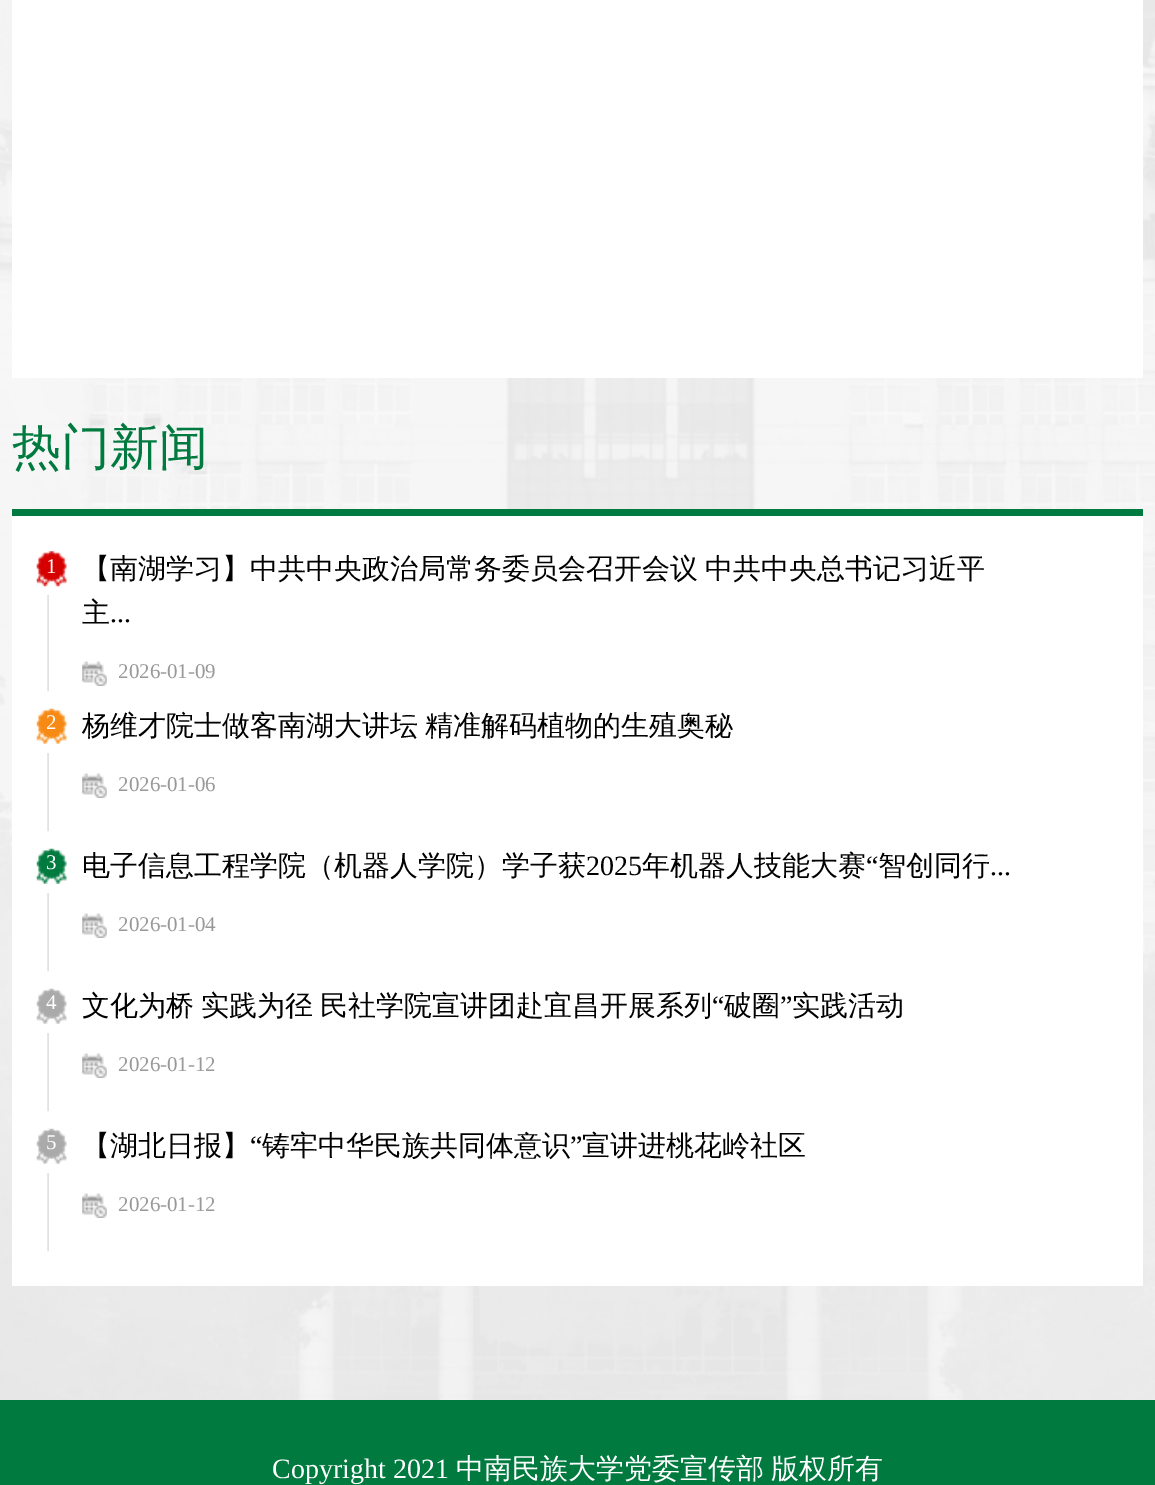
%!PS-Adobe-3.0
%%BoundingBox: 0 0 1155 1485
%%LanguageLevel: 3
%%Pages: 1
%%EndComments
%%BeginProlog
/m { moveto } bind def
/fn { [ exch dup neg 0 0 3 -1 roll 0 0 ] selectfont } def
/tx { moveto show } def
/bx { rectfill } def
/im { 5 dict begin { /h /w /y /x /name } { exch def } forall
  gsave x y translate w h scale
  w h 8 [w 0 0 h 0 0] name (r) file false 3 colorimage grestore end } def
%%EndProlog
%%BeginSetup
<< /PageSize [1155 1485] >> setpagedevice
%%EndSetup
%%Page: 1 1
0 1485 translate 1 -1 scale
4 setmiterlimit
0 0.478 0.247 setrgbcolor
0 0 1155 1485 bx
0.973 setgray
0 0 1155 1400 bx
(image0.raw) 0 0 1155 1400 im
1 setgray
12 0 1131 378 bx
0 0.478 0.247 setrgbcolor
12 509 1131 7 bx
/WenQuanYiZenHei-Medium 49 fn
(热门新闻) 12 464 tx
1 setgray
12 516 1131 770 bx
(image1.raw) 47 595 2 97 im
(image2.raw) 36 551 31 36 im
/LiberationSerif-Regular 21 fn
(1) 46 573 tx
/WenQuanYiZenHei-Medium 28 fn
0 setgray
82 578 m -1 0 32 (【南湖学习】中共中央政治局常务委员会召开会议 中共中央总书记习近平) widthshow
(主) 82 622 tx
/LiberationSerif-Regular 28 fn
(...) 110 622 tx
(image3.raw) 82 661 25 25 im
/LiberationSerif-Regular 21 fn
0.6 setgray
(2026-01-09) 118 678 tx
(image4.raw) 47 708 2 124 im
1 setgray
47 709 2 44 bx
(image5.raw) 36 708 31 36 im
(2) 46 729 tx
/WenQuanYiZenHei-Medium 28 fn
0 setgray
82 735 m -1 0 32 (杨维才院士做客南湖大讲坛 精准解码植物的生殖奥秘) widthshow
(image3.raw) 82 773 25 25 im
/LiberationSerif-Regular 21 fn
0.6 setgray
(2026-01-06) 118 791 tx
(image4.raw) 47 848 2 124 im
1 setgray
47 849 2 44 bx
(image6.raw) 36 848 31 36 im
(3) 46 869 tx
/WenQuanYiZenHei-Medium 28 fn
0 setgray
(电子信息工程学院（机器人学院）学子获) 82 875 tx
/LiberationSerif-Regular 28 fn
(2025) 586 875 tx
/WenQuanYiZenHei-Medium 28 fn
(年机器人技能大赛) 642 875 tx
/LiberationSerif-Regular 28 fn
(“) 866 875 tx
/WenQuanYiZenHei-Medium 28 fn
(智创同行) 878 875 tx
/LiberationSerif-Regular 28 fn
(...) 990 875 tx
(image3.raw) 82 913 25 25 im
/LiberationSerif-Regular 21 fn
0.6 setgray
(2026-01-04) 118 931 tx
(image4.raw) 47 988 2 124 im
1 setgray
47 989 2 44 bx
(image7.raw) 36 988 31 36 im
(4) 46 1009 tx
/WenQuanYiZenHei-Medium 28 fn
0 setgray
82 1015 m -1 0 32 (文化为桥 实践为径) widthshow
(民社学院宣讲团赴宜昌开展系列) 320 1015 tx
/LiberationSerif-Regular 28 fn
(“) 712 1015 tx
/WenQuanYiZenHei-Medium 28 fn
(破圈) 724 1015 tx
/LiberationSerif-Regular 28 fn
(”) 780 1015 tx
/WenQuanYiZenHei-Medium 28 fn
(实践活动) 792 1015 tx
(image3.raw) 82 1053 25 25 im
/LiberationSerif-Regular 21 fn
0.6 setgray
(2026-01-12) 118 1071 tx
(image4.raw) 47 1128 2 124 im
1 setgray
47 1129 2 44 bx
(image7.raw) 36 1128 31 36 im
(5) 46 1149 tx
/WenQuanYiZenHei-Medium 28 fn
0 setgray
(【湖北日报】) 82 1155 tx
/LiberationSerif-Regular 28 fn
(“) 250 1155 tx
/WenQuanYiZenHei-Medium 28 fn
(铸牢中华民族共同体意识) 262 1155 tx
/LiberationSerif-Regular 28 fn
(”) 570 1155 tx
/WenQuanYiZenHei-Medium 28 fn
(宣讲进桃花岭社区) 582 1155 tx
(image8.raw) 82 1193 25 25 im
/LiberationSerif-Regular 21 fn
0.6 setgray
(2026-01-12) 118 1211 tx
/LiberationSerif-Regular 28 fn
1 setgray
(Copyright 2021) 272 1478 tx
/WenQuanYiZenHei-Medium 28 fn
(中南民族大学党委宣传部) 456 1478 tx
(版权所有) 771 1478 tx
showpage
%%EOF
